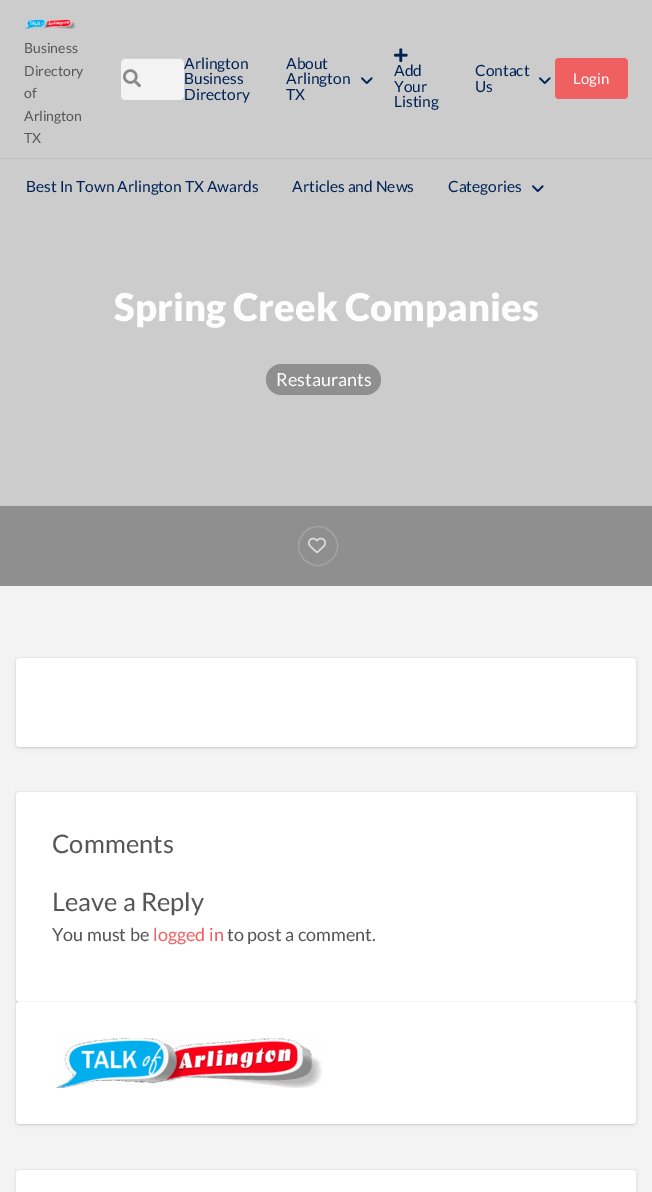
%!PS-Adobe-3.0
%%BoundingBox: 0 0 652 1192
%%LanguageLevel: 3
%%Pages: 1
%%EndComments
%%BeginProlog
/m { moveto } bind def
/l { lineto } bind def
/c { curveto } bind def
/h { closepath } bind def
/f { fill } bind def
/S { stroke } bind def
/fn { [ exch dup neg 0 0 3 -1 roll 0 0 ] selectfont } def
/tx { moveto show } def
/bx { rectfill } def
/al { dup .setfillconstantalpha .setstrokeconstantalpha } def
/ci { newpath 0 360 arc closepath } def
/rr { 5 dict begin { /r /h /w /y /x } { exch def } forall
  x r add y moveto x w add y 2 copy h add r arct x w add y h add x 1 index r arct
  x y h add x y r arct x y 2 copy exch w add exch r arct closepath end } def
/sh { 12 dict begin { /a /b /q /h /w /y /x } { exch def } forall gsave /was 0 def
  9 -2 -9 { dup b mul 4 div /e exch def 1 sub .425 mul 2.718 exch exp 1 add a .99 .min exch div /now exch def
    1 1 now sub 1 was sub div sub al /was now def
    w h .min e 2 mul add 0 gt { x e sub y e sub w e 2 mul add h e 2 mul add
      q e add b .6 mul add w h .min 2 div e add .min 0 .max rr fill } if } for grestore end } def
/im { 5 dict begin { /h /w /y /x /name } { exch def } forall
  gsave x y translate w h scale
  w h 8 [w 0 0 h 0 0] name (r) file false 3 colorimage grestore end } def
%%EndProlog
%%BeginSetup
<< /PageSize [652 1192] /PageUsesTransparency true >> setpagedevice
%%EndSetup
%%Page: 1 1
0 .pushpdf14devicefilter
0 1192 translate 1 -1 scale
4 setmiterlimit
0.953 0.953 0.957 setrgbcolor
0 0 652 1192 bx
0.8 setgray
0 0 652 158 bx
0.749 setgray
0 158 652 1 bx
(image0.raw) 25 19 51 10 im
/Lato-Regular 14 fn
0.337 setgray
(Business) 24 53 tx
(Directory) 24 76 tx
(of) 24 98 tx
(Arlington) 24 121 tx
(TX) 24 143 tx
0.953 0.953 0.957 setrgbcolor
125 58 m 138 58 l 138 100 l 125 100 l 123 100 121 98 121 96 c 121 62 l 121 60 123 58 125 58 c h f
0.12 al
0 setgray
125 59 m 138 59 l 138 58 l 129.5 58 l 125 58 121 57.5 121 63 c 121 61 123 59 125 59 c h f
/Lato-Regular 15.5 fn
1 al
0 0.133 0.333 setrgbcolor
(Arlington) 184 69 tx
0.953 0.953 0.957 setrgbcolor
131 58 m 180 58 l 182 58 184 60 184 62 c 184 96 l 184 98 182 100 180 100 c 131 100 l h f
0.12 al
0 setgray
131 59 m 180 59 l 182 59 184 61 184 63 c 184 62 l 184 60 182 58 180 58 c 131 58 l h f
1 al
(image1.raw) 123 69 18 19 im
0 0.133 0.333 setrgbcolor
(Business) 184 84 tx
(Directory) 184 100 tx
(About) 286 69 tx
(Arlington) 286 84 tx
(image2.raw) 361 77 12 7 im
(TX) 286 100 tx
(image3.raw) 394 48 14 14 im
(Add) 394 76 tx
(Your) 394 92 tx
(Listing) 394 107 tx
(Contact) 475 76 tx
(Us) 475 92 tx
(image2.raw) 539 77 12 7 im
0.941 0.376 0.376 setrgbcolor
555 58 73 41 4 rr f
/Lato-Regular 15 fn
0.996 setgray
(Login) 573 84 tx
0.8 setgray
0 159 652 347 bx
/Lato-Regular 15.5 fn
0 0.133 0.333 setrgbcolor
(Best In Town Arlington TX Awards) 26 192 tx
(Articles and News) 292 192 tx
(Categories) 448 192 tx
(image2.raw) 532 185 12 7 im
/Lato-Black 38.25 fn
0.996 setgray
(Spring Creek Companies) 114 321 tx
0.561 setgray
266 364 115 31 15.5 rr f
/Lato-Regular 18 fn
0.996 setgray
(Restaurants) 276 386 tx
0.561 setgray
0 506 652 80 bx
0.651 setgray
318 546 19.5 ci S
(image4.raw) 308 537 18 16 im
0 setgray
16 660 620 89 4 2.5 0.05 sh
16 659 620 89 4 0.5 0.05 sh
0.03 al
15.5 657.5 621 90 rectstroke
1 al
1 setgray
16 658 620 89 4 rr f
0 setgray
16 794 620 210 4 2.5 0.05 sh
16 793 620 210 4 0.5 0.05 sh
0.03 al
15.5 791.5 621 211 rectstroke
1 al
1 setgray
16 792 620 210 4 rr f
/Lato-Regular 25.5 fn
0.337 setgray
(Comments) 52 853 tx
(Leave a Reply) 52 911 tx
/Lato-Regular 18 fn
(You must be) 52 941 tx
0.941 0.376 0.376 setrgbcolor
(logged in) 153 941 tx
0.337 setgray
(to post a comment.) 227 941 tx
0 setgray
16 1004 620 122 4 2.5 0.05 sh
16 1003 620 122 4 0.5 0.05 sh
0.03 al
15.5 1001.5 621 123 rectstroke
1 al
1 setgray
16 1002 620 122 4 rr f
(image5.raw) 56 1038 266 50 im
0 setgray
16 1172 620 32 4 2.5 0.05 sh
0.03 al
15.5 1169.5 621 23 rectstroke
1 al
1 setgray
16 1170 620 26 4 rr f
.poppdf14devicefilter showpage
%%EOF
